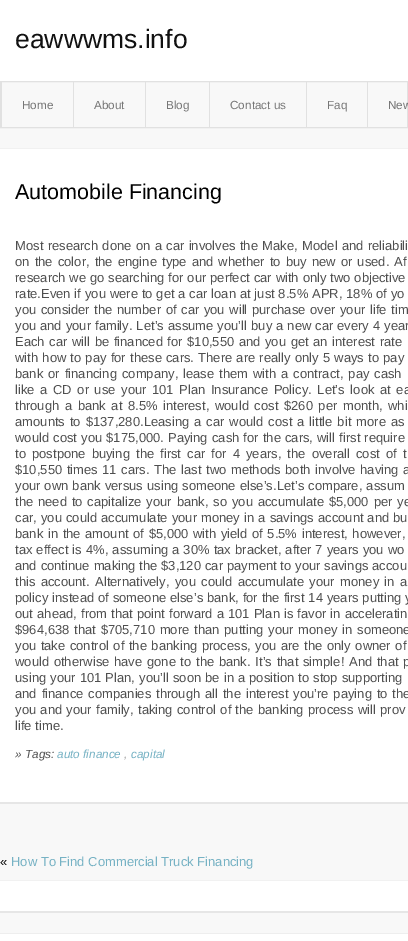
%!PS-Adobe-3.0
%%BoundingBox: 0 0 408 941
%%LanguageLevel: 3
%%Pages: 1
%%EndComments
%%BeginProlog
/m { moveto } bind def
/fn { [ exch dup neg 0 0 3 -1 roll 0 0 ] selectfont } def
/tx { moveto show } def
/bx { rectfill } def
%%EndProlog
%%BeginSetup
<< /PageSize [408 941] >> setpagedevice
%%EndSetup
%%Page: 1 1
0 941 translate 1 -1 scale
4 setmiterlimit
0.973 setgray
0 0 408 941 bx
1 setgray
0 0 408 81 bx
/LiberationSans-Regular 26.5 fn
0.067 setgray
(eawwwms.info) 15 48 tx
0.882 setgray
0.5 81.5 407 46 rectstroke
1 82 1 46 bx
73 82 1 46 bx
/LiberationSans-Regular 11.75 fn
0.467 setgray
(Home) 22 109 tx
0.882 setgray
145 82 1 46 bx
0.467 setgray
(About) 94 109 tx
0.882 setgray
209 82 1 46 bx
0.467 setgray
(Blog) 166 109 tx
0.882 setgray
306 82 1 46 bx
0.467 setgray
(Contact us) 230 109 tx
0.882 setgray
367 82 1 46 bx
0.467 setgray
(Faq) 327 109 tx
(New) 388 109 tx
1 setgray
0 149 408 653 bx
0.945 setgray
0 148 408 1 bx
0.902 setgray
0 802 408 2 bx
/LiberationSans-Regular 21.5 fn
0 setgray
(Automobile Financing) 15 199 tx
/LiberationSans-Regular 13 fn
0.31 setgray
15 250 m 0.75 0 32 (Most research done on a car involves the Make, Model and reliabili) widthshow
15 266 m 1.5 0 32 (on the color, the engine type and whether to buy new or used. Af) widthshow
15 282 m 0.25 0 32 (research we go searching for our perfect car with only two objective) widthshow
15 298 m 0.25 0 32 (rate.Even if you were to get a car loan at just 8.5% APR, 18% of yo) widthshow
15 314 m 1 0 32 (you consider the number of car you will purchase over your life tim) widthshow
15 330 m 0.4 0 32 (you and your family. Let’s assume you’ll buy a new car every 4 year) widthshow
15 346 m 1 0 32 (Each car will be financed for $10,550 and you get an interest rate) widthshow
15 362 m 0.6 0 32 (with how to pay for these cars. There are really only 5 ways to pay) widthshow
15 378 m 1.4 0 32 (bank or financing company, lease them with a contract, pay cash) widthshow
15 394 m 2 0 32 (like a CD or use your 101 Plan Insurance Policy. Let’s look at ea) widthshow
15 410 m 2 0 32 (through a bank at 8.5% interest, would cost $260 per month, whi) widthshow
15 426 m 1.4 0 32 (amounts to $137,280.Leasing a car would cost a little bit more as) widthshow
15 442 m 0.5 0 32 (would cost you $175,000. Paying cash for the cars, will first require) widthshow
15 458 m 2.5 0 32 (to postpone buying the first car for 4 years, the overall cost of t) widthshow
15 474 m 1 0 32 ($10,550 times 11 cars. The last two methods both involve having a) widthshow
15 490 m 0.5 0 32 (your own bank versus using someone else’s.Let’s compare, assum) widthshow
15 506 m 1.25 0 32 (the need to capitalize your bank, so you accumulate $5,000 per ye) widthshow
15 522 m 0.5 0 32 (car, you could accumulate your money in a savings account and bu) widthshow
15 538 m 1 0 32 (bank in the amount of $5,000 with yield of 5.5% interest, however,) widthshow
15 554 m 0.5 0 32 (tax effect is 4%, assuming a 30% tax bracket, after 7 years you wo) widthshow
15 570 m 0.25 0 32 (and continue making the $3,120 car payment to your savings accou) widthshow
15 586 m 1.75 0 32 (this account. Alternatively, you could accumulate your money in a) widthshow
15 602 m 0.25 0 32 (policy instead of someone else’s bank, for the first 14 years putting y) widthshow
15 618 m 0.5 0 32 (out ahead, from that point forward a 101 Plan is favor in acceleratin) widthshow
15 634 m 1.25 0 32 ($964,638 that $705,710 more than putting your money in someone) widthshow
15 650 m 1 0 32 (you take control of the banking process, you are the only owner of) widthshow
15 666 m 1.1 0 32 (would otherwise have gone to the bank. It’s that simple! And that p) widthshow
15 682 m 0.5 0 32 (using your 101 Plan, you’ll soon be in a position to stop supporting) widthshow
15 698 m 1.25 0 32 (and finance companies through all the interest you’re paying to the) widthshow
15 714 m 0.75 0 32 (you and your family, taking control of the banking process will prov) widthshow
(life time.) 15 730 tx
/LiberationSans-Italic 11.75 fn
(» Tags:) 15 758 tx
0.463 0.698 0.769 setrgbcolor
(auto finance) 57 758 tx
0.6 setgray
(,) 124 758 tx
0.463 0.698 0.769 setrgbcolor
(capital) 131 758 tx
/LiberationSans-Regular 13 fn
0 setgray
(«) 0 866 tx
0.463 0.698 0.769 setrgbcolor
(How To Find Commercial Truck Financing) 11 866 tx
1 setgray
0 881 408 30 bx
0.945 setgray
0 880 408 1 bx
0.902 setgray
0 911 408 2 bx
1 setgray
0 934 408 7 bx
0.933 setgray
0 933 408 1 bx
showpage
%%EOF
